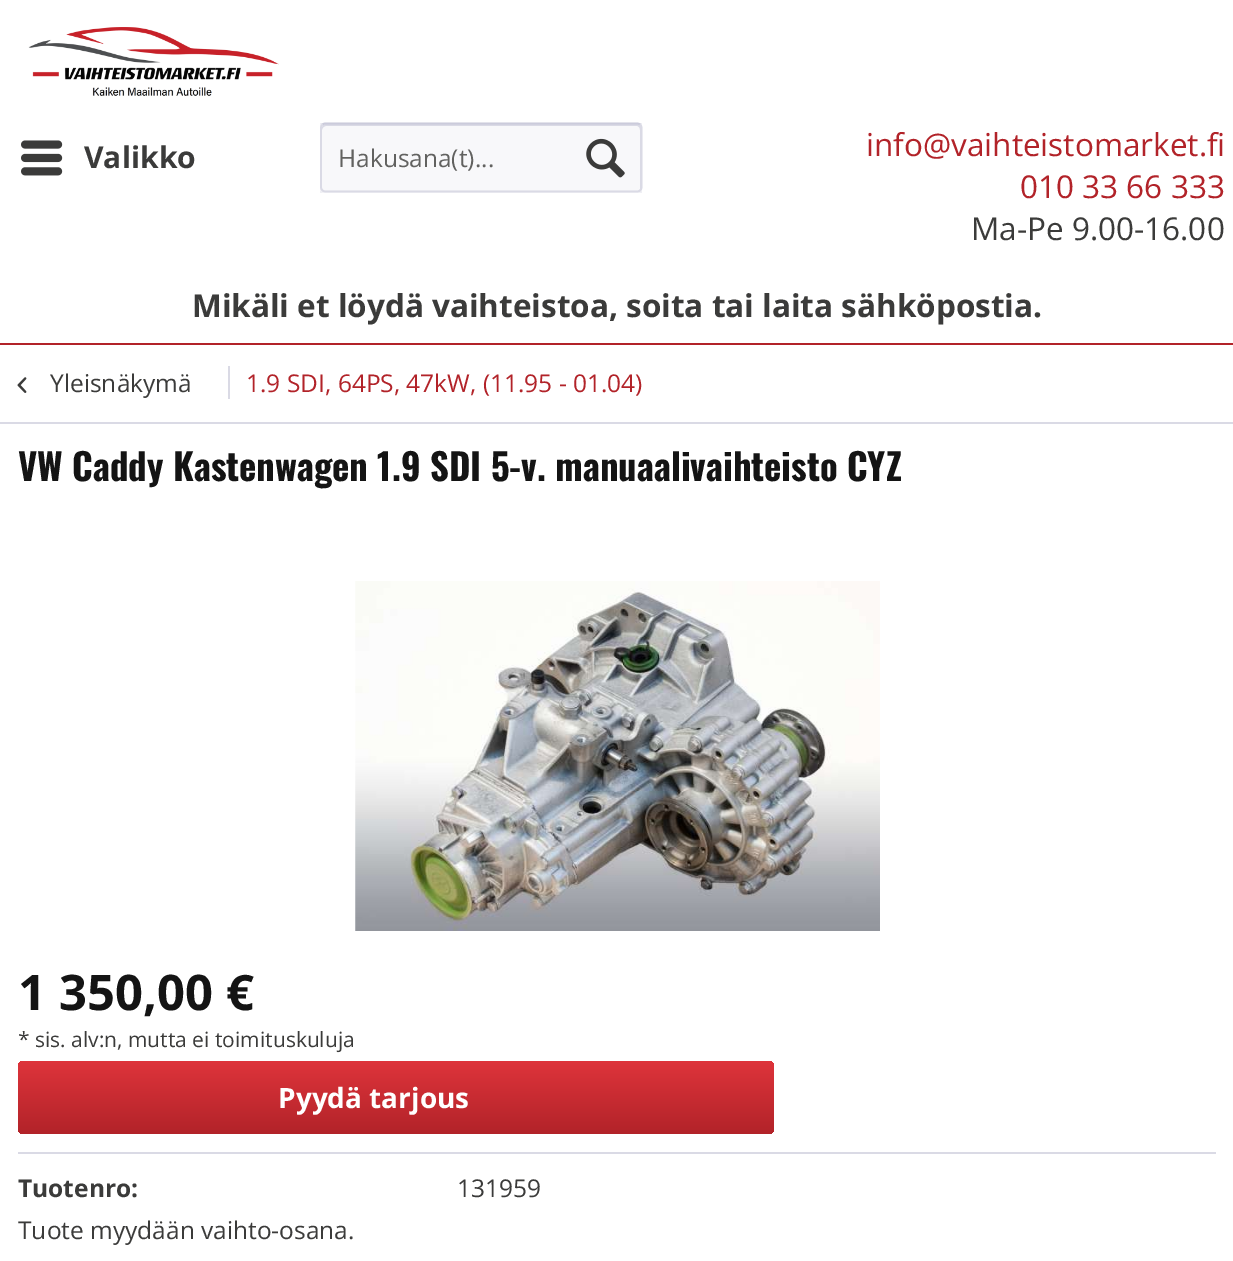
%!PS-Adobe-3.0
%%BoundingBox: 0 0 1233 1261
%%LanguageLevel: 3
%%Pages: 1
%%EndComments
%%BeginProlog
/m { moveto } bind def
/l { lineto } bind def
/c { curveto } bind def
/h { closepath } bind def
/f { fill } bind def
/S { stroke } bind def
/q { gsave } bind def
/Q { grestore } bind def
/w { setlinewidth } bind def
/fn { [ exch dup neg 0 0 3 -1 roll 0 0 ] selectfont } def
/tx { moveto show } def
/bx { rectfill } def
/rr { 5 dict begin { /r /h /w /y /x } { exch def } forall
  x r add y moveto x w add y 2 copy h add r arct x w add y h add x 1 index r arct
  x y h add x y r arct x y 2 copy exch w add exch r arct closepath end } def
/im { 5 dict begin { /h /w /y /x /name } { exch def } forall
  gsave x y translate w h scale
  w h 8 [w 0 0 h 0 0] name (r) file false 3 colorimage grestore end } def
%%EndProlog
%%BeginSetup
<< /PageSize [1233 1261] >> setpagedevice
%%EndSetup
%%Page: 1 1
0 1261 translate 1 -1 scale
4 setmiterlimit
1 setgray
0 0 1233 1261 bx
0.698 0.137 0.161 setrgbcolor
0 343 1233 2 bx
(image0.raw) 28 27 251 69 im
(image1.raw) 21 140 42 36 im
/OpenSans-Bold 30 fn
0.231 0.231 0.227 setrgbcolor
(Valikko) 84 168 tx
0.937 0.937 0.957 setrgbcolor
320 123 322 70 bx
0.973 0.973 0.98 setrgbcolor
320 123 322 70 5 rr f
0.855 0.855 0.898 setrgbcolor
326 126 m 637 126 l 639 126 640 128 640 130 c 640 190 l 641 189 641 188 641 187 c 641 128 l 641 126 639 124 637 124 c 326 124 l 324 124 322 126 322 128 c 322 130 l 322 128 324 126 326 126 c h f
0.796 0.796 0.859 setrgbcolor
1.8 w
322.5 124.5 m 323 124 324.5 123.5 325.5 123.5 c 637 123.5 l 638 123.5 639.5 124 640 124.5 c S
0.855 0.855 0.898 setrgbcolor
640 124.5 m 641 125.5 641.5 126.5 641.5 128 c 641.5 187 l 641.5 188.5 641 189.5 640 190.5 c 639.5 191 638 191.5 637 191.5 c 325.5 191.5 l 324.5 191.5 323 191 322.5 190.5 c 321.5 189.5 321 188.5 321 187 c 321 128 l 321 126.5 321.5 125.5 322.5 124.5 c S
/OpenSans-Regular 24.5 fn
0.384 0.384 0.376 setrgbcolor
(Hakusana\(t\)...) 338 167 tx
(image2.raw) 586 138 39 40 im
/OpenSans-Regular 31.5 fn
0.698 0.137 0.161 setrgbcolor
(info@vaihteistomarket.fi) 866 156 tx
(010 33 66 333) 1020 198 tx
0.231 0.231 0.227 setrgbcolor
(Ma-Pe 9.00-16.00) 971 240 tx
/OpenSans-Bold 31.5 fn
(Mikäli et löydä vaihteistoa, soita tai laita sähköpostia.) 192 317 tx
0.855 0.855 0.898 setrgbcolor
0 422 1233 2 bx
(image3.raw) 17 377 10 16 im
/OpenSans-Regular 24.5 fn
0.231 0.231 0.227 setrgbcolor
(Yleisnäkymä) 50 392 tx
0.855 0.855 0.898 setrgbcolor
228 366 2 33 bx
0.698 0.137 0.161 setrgbcolor
(1.9 SDI, 64PS, 47kW, \(11.95 - 01.04\)) 246 392 tx
/Oswald-Bold 36.75 fn
0.078 setgray
(VW Caddy Kastenwagen 1.9 SDI 5-v. manuaalivaihteisto CYZ) 18 481 tx
(image4.raw) 355 581 525 350 im
/OpenSans-Bold 49 fn
(1 350,00 €) 18 1010 tx
/OpenSans-Regular 21 fn
0.231 0.231 0.227 setrgbcolor
(* sis. alv:n, mutta ei toimituskuluja) 18 1047 tx
q 18 1061 756 73 5 rr clip newpath
<< /ShadingType 2 /ColorSpace /DeviceRGB /Coords [396 1061 396 1134] /Extend [true true] /Function << /FunctionType 2 /Domain [0 1] /C0 [0.871 0.204 0.231] /C1 [0.698 0.137 0.161] /N 1 >> >> shfill Q
/OpenSans-Bold 28 fn
1 setgray
(Pyydä tarjous) 278 1108 tx
0.855 0.855 0.898 setrgbcolor
18 1152 1198 2 bx
/OpenSans-Bold 24.5 fn
0.231 0.231 0.227 setrgbcolor
(Tuotenro:) 18 1197 tx
/OpenSans-Regular 24.5 fn
(131959) 457 1197 tx
(Tuote myydään vaihto-osana.) 18 1239 tx
showpage
%%EOF
